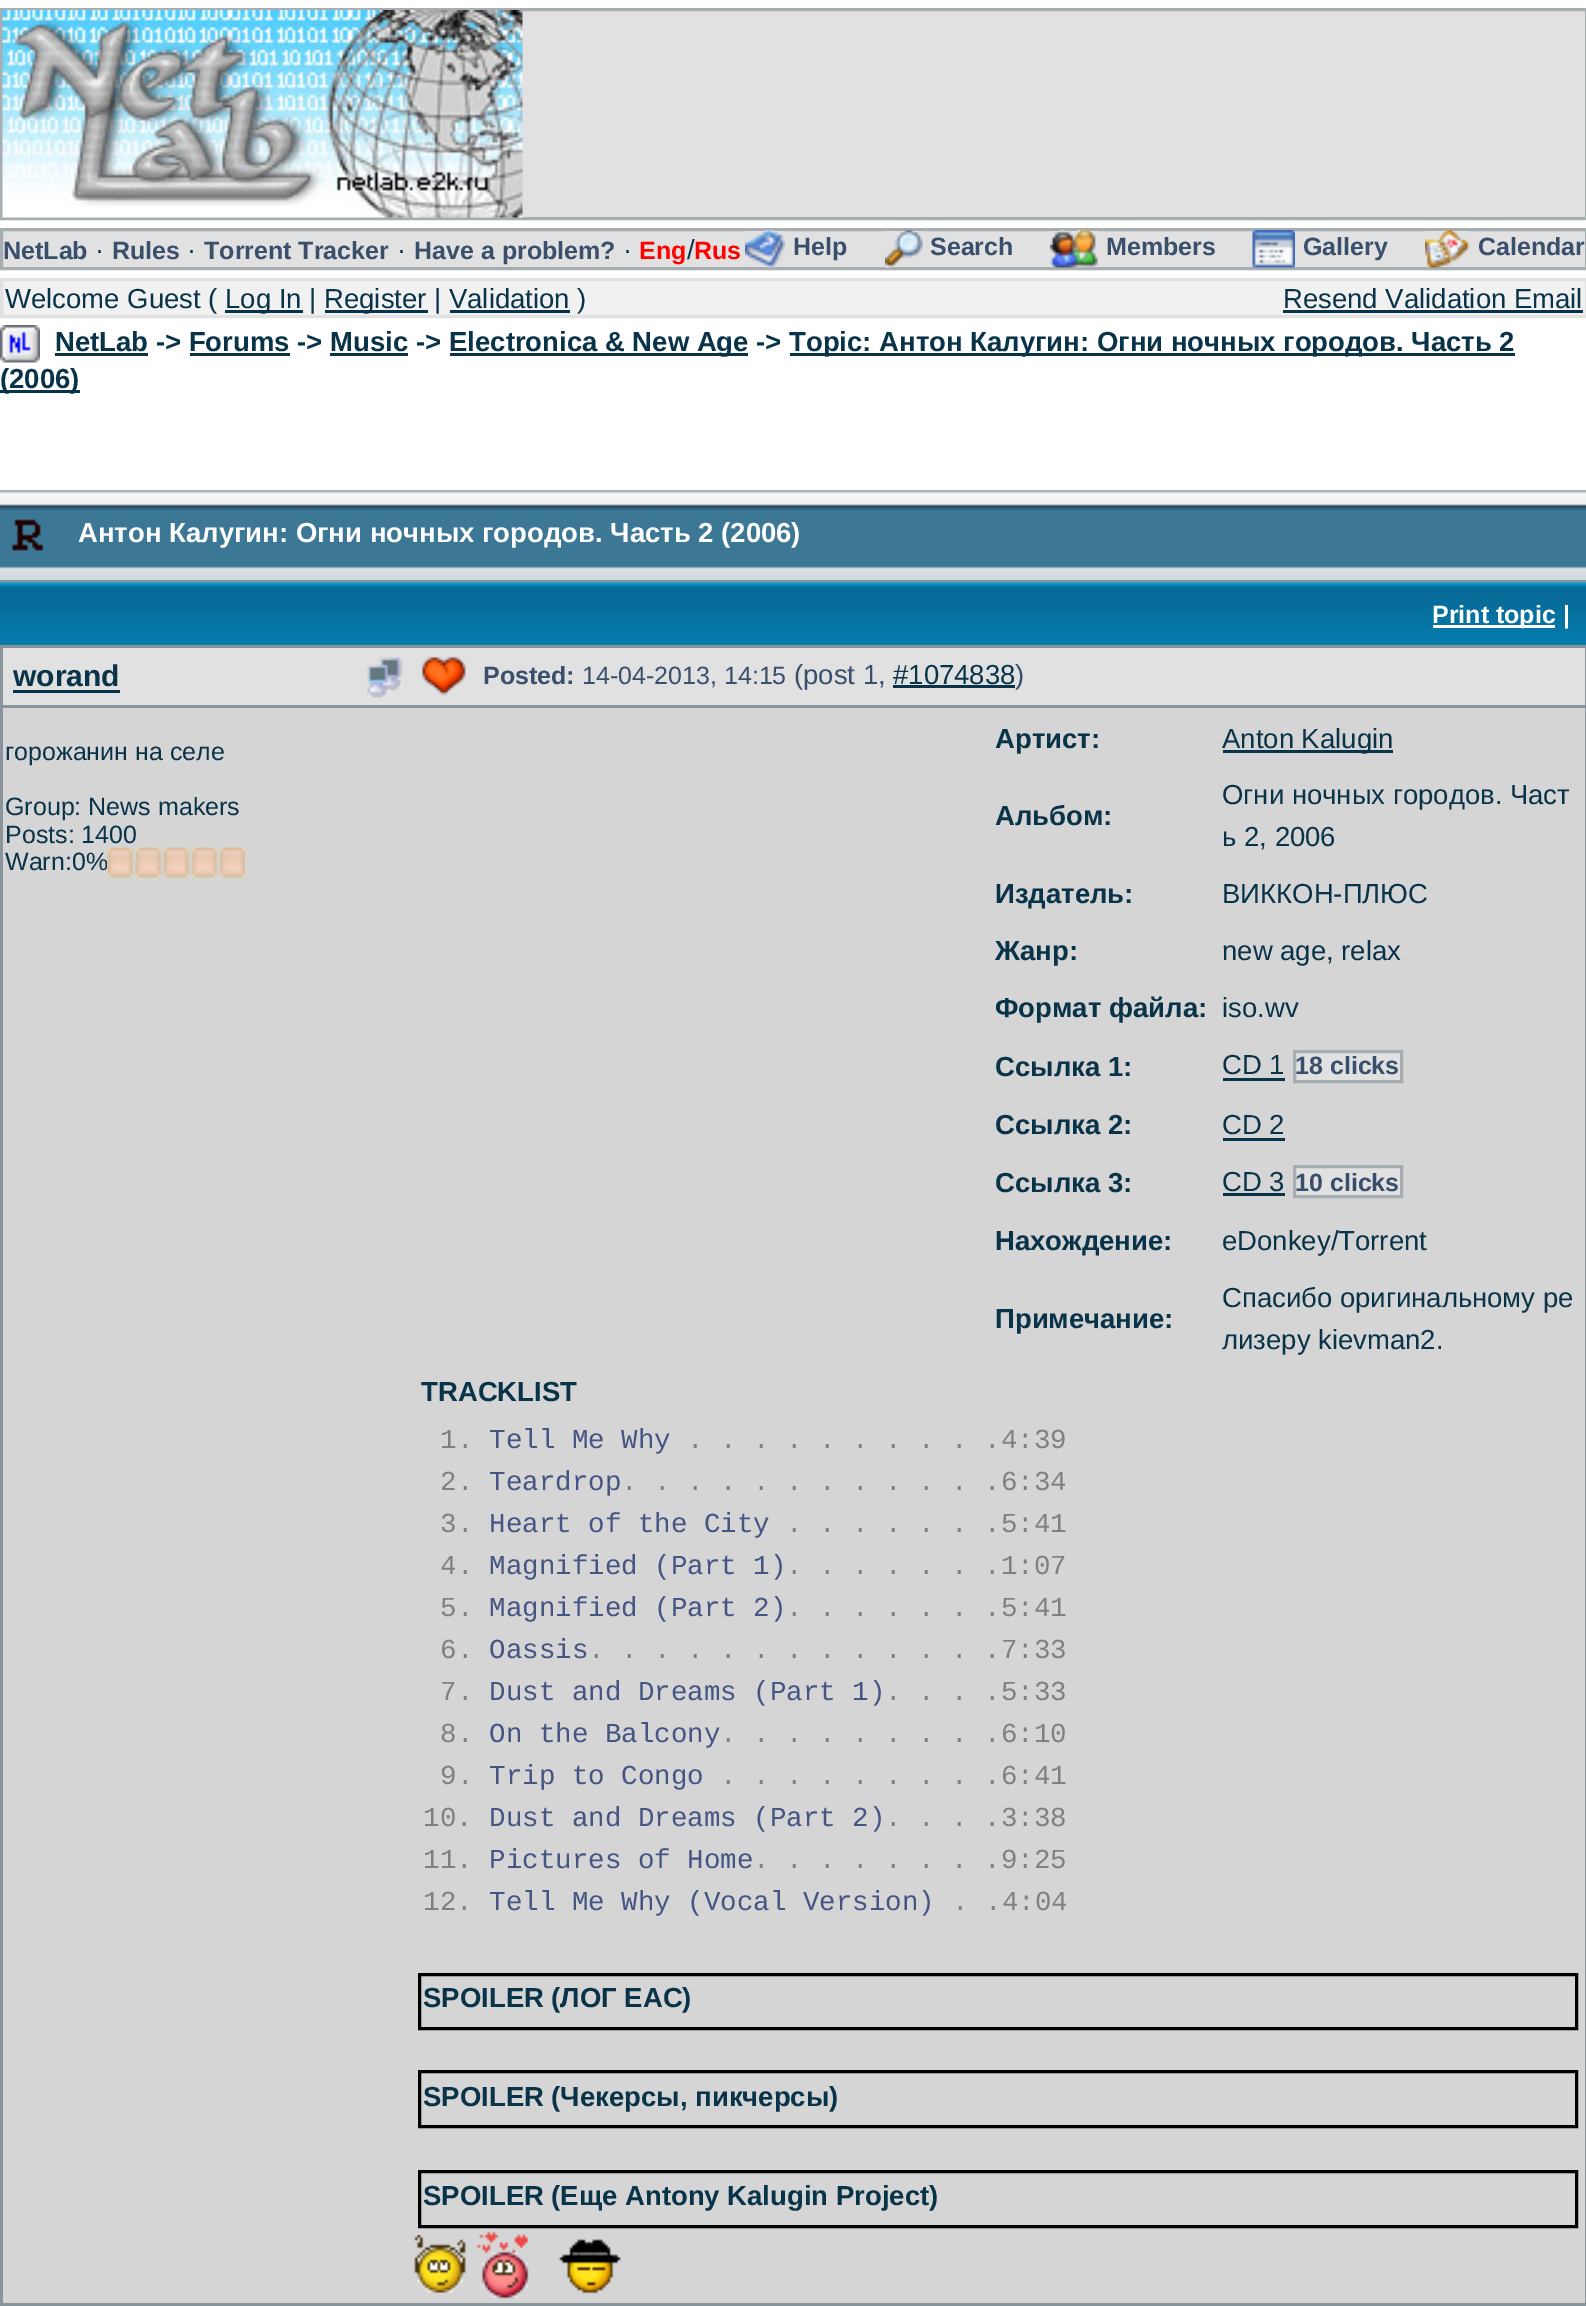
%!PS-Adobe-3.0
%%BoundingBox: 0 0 1586 2306
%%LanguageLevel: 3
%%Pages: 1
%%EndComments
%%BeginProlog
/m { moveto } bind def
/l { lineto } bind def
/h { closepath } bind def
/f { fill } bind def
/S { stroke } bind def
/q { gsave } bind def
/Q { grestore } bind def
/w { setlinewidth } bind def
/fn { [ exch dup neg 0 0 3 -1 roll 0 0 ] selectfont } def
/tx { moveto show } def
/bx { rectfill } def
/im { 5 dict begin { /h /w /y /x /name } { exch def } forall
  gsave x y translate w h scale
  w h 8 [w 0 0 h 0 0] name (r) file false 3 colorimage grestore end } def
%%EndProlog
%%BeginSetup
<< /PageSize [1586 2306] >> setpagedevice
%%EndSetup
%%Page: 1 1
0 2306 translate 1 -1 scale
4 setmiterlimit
1 setgray
0 0 1586 2306 bx
0.882 setgray
522 11 1063 206 bx
0.655 0.682 0.698 setrgbcolor
3 w
1.5 9.5 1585 209 rectstroke
(image0.raw) 2 10 521 208 im
0.882 setgray
1.5 229.5 m 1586.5 229.5 l 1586.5 268.5 l 1.5 268.5 l h q f Q
0.655 0.682 0.698 setrgbcolor
S
/LiberationSans-Bold 25 fn
0.227 0.31 0.424 setrgbcolor
(NetLab) 3 259 tx
/LiberationSans-Regular 27.5 fn
0.035 0.2 0.286 setrgbcolor
(·) 95 259 tx
/LiberationSans-Bold 25 fn
0.227 0.31 0.424 setrgbcolor
(Rules) 112 259 tx
/LiberationSans-Regular 27.5 fn
0.035 0.2 0.286 setrgbcolor
(·) 187 259 tx
/LiberationSans-Bold 25 fn
0.227 0.31 0.424 setrgbcolor
(Torrent Tracker) 204 259 tx
/LiberationSans-Regular 27.5 fn
0.035 0.2 0.286 setrgbcolor
(·) 397 259 tx
/LiberationSans-Bold 25 fn
0.227 0.31 0.424 setrgbcolor
(Have a problem?) 414 259 tx
/LiberationSans-Regular 27.5 fn
0.035 0.2 0.286 setrgbcolor
(·) 623 259 tx
/LiberationSans-Bold 25 fn
1 0 0 setrgbcolor
(Eng) 639 259 tx
/LiberationSans-Regular 27.5 fn
0.035 0.2 0.286 setrgbcolor
(/) 687 259 tx
/LiberationSans-Bold 25 fn
1 0 0 setrgbcolor
(Rus) 694 259 tx
(image1.raw) 745 230 40 38 im
0.227 0.31 0.424 setrgbcolor
(Help) 793 255 tx
(image2.raw) 885 230 38 38 im
(Search) 930 255 tx
(image3.raw) 1050 230 48 38 im
(Members) 1106 255 tx
(image4.raw) 1252 230 43 38 im
(Gallery) 1303 255 tx
(image5.raw) 1425 230 45 38 im
(Calendar) 1478 255 tx
0.945 setgray
1.5 279.5 m 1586.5 279.5 l 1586.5 316.5 l 1.5 316.5 l h q f Q
0.882 setgray
S
/LiberationSans-Regular 27.5 fn
0.035 0.2 0.286 setrgbcolor
(Welcome Guest \() 5 308 tx
225 310 78 3 bx
(Log In |) 225 308 tx
325 310 103 3 bx
(Register | Validation \)) 324 308 tx
450 310 120 3 bx
(Resend Validation Email) 1283 308 tx
1283 310 300 3 bx
(image6.raw) 0 325 40 38 im
/LiberationSans-Bold 27.5 fn
(NetLab -> Forums -> Music ->) 55 351 tx
55 353 93 3 bx
450 353 298 3 bx
(Electronica & New Age ->) 449 351 tx
790 353 725 3 bx
(Topic: Антон Калугин: Огни ночных городов. Часть 2) 789 351 tx
190 353 100 3 bx
330 353 78 3 bx
0 390 80 3 bx
(\(2006\)) 0 388 tx
0.537 0.584 0.608 setrgbcolor
0 580 1586 1726 bx
0.812 0.847 0.871 setrgbcolor
0 576 1586 4 bx
(image7.raw) 0 490 1586 86 im
(image8.raw) 11 519 33 32 im
1 setgray
(Антон Калугин: Огни ночных городов. Часть 2 \(2006\)) 78 542 tx
(image9.raw) 0 582 1586 63 im
1433 625 122 3 bx
/LiberationSans-Bold 25 fn
(Print topic |) 1432 623 tx
0.882 setgray
3 648 1582 57 bx
/LiberationSans-Bold 30 fn
0.035 0.2 0.286 setrgbcolor
(worand) 13 686 tx
13 690 107 3 bx
(image10.raw) 367 657 36 41 im
(image11.raw) 421 656 45 40 im
/LiberationSans-Bold 25 fn
0.227 0.31 0.424 setrgbcolor
(Posted:) 483 684 tx
/LiberationSans-Regular 25 fn
(14-04-2013, 14:15) 582 684 tx
/LiberationSans-Regular 27.5 fn
(\(post 1,) 794 684 tx
0.035 0.2 0.286 setrgbcolor
(#1074838) 893 684 tx
893 685 122 3 bx
0.227 0.31 0.424 setrgbcolor
(\)) 1015 684 tx
0.835 setgray
3 708 1582 1595 bx
/LiberationSans-Regular 25 fn
0.035 0.2 0.286 setrgbcolor
(горожанин на селе) 5 760 tx
(Group: News makers) 5 815 tx
(Posts: 1400) 5 843 tx
(Warn:0%) 5 870 tx
(image12.raw) 107 847 138 31 im
/LiberationSans-Bold 27.5 fn
(Артист:) 995 748 tx
1223 750 170 3 bx
/LiberationSans-Regular 27.5 fn
(Anton Kalugin) 1222 748 tx
/LiberationSans-Bold 27.5 fn
(Альбом:) 995 825 tx
/LiberationSans-Regular 27.5 fn
(Огни ночных городов. Част) 1222 804 tx
(ь 2, 2006) 1222 846 tx
/LiberationSans-Bold 27.5 fn
(Издатель:) 995 903 tx
/LiberationSans-Regular 27.5 fn
(ВИККОН-ПЛЮС) 1222 903 tx
/LiberationSans-Bold 27.5 fn
(Жанр:) 995 960 tx
/LiberationSans-Regular 27.5 fn
(new age, relax) 1222 960 tx
/LiberationSans-Bold 27.5 fn
(Формат файла:) 995 1017 tx
/LiberationSans-Regular 27.5 fn
(iso.wv) 1222 1017 tx
/LiberationSans-Bold 27.5 fn
(Ссылка 1:) 995 1076 tx
/LiberationSans-Regular 27.5 fn
(CD 1) 1222 1074 tx
1223 1078 62 3 bx
0.882 setgray
1294.5 1051.5 m 1401.5 1051.5 l 1401.5 1081.5 l 1294.5 1081.5 l h q f Q
0.655 0.682 0.698 setrgbcolor
S
/LiberationSans-Bold 25 fn
0.227 0.31 0.424 setrgbcolor
(18 clicks) 1295 1074 tx
/LiberationSans-Bold 27.5 fn
0.035 0.2 0.286 setrgbcolor
(Ссылка 2:) 995 1134 tx
/LiberationSans-Regular 27.5 fn
(CD 2) 1222 1134 tx
1223 1138 62 3 bx
/LiberationSans-Bold 27.5 fn
(Ссылка 3:) 995 1192 tx
/LiberationSans-Regular 27.5 fn
(CD 3) 1222 1191 tx
1223 1193 62 3 bx
0.882 setgray
1294.5 1166.5 m 1401.5 1166.5 l 1401.5 1196.5 l 1294.5 1196.5 l h q f Q
0.655 0.682 0.698 setrgbcolor
S
/LiberationSans-Bold 25 fn
0.227 0.31 0.424 setrgbcolor
(10 clicks) 1295 1191 tx
/LiberationSans-Bold 27.5 fn
0.035 0.2 0.286 setrgbcolor
(Нахождение:) 995 1250 tx
/LiberationSans-Regular 27.5 fn
(eDonkey/Torrent) 1222 1250 tx
/LiberationSans-Bold 27.5 fn
(Примечание:) 995 1328 tx
/LiberationSans-Regular 27.5 fn
(Спасибо оригинальному ре) 1222 1307 tx
(лизеру kievman2.) 1222 1349 tx
/LiberationSans-Bold 27.5 fn
(TRACKLIST) 421 1401 tx
/LiberationMono-Regular 27.5 fn
0.502 setgray
(1.) 440 1448 tx
0.275 0.333 0.518 setrgbcolor
(Tell Me Why) 489 1448 tx
0.502 setgray
(. . . . . . . . . .4:39) 687 1448 tx
(2.) 440 1490 tx
0.275 0.333 0.518 setrgbcolor
(Teardrop) 489 1490 tx
0.502 setgray
(. . . . . . . . . . . .6:34) 621 1490 tx
(3.) 440 1532 tx
0.275 0.333 0.518 setrgbcolor
(Heart of the City) 489 1532 tx
0.502 setgray
(. . . . . . .5:41) 786 1532 tx
(4.) 440 1574 tx
0.275 0.333 0.518 setrgbcolor
(Magnified \(Part 1\)) 489 1574 tx
0.502 setgray
(. . . . . . .1:07) 786 1574 tx
(5.) 440 1616 tx
0.275 0.333 0.518 setrgbcolor
(Magnified \(Part 2\)) 489 1616 tx
0.502 setgray
(. . . . . . .5:41) 786 1616 tx
(6.) 440 1658 tx
0.275 0.333 0.518 setrgbcolor
(Oassis) 489 1658 tx
0.502 setgray
(. . . . . . . . . . . . .7:33) 588 1658 tx
(7.) 440 1700 tx
0.275 0.333 0.518 setrgbcolor
(Dust and Dreams \(Part 1\)) 489 1700 tx
0.502 setgray
(. . . .5:33) 885 1700 tx
(8.) 440 1742 tx
0.275 0.333 0.518 setrgbcolor
(On the Balcony) 489 1742 tx
0.502 setgray
(. . . . . . . . .6:10) 720 1742 tx
(9.) 440 1784 tx
0.275 0.333 0.518 setrgbcolor
(Trip to Congo) 489 1784 tx
0.502 setgray
(. . . . . . . . .6:41) 720 1784 tx
(10.) 423 1826 tx
0.275 0.333 0.518 setrgbcolor
(Dust and Dreams \(Part 2\)) 489 1826 tx
0.502 setgray
(. . . .3:38) 885 1826 tx
(11.) 423 1868 tx
0.275 0.333 0.518 setrgbcolor
(Pictures of Home) 489 1868 tx
0.502 setgray
(. . . . . . . .9:25) 753 1868 tx
(12.) 423 1910 tx
0.275 0.333 0.518 setrgbcolor
(Tell Me Why \(Vocal Version\)) 489 1910 tx
0.502 setgray
(. .4:04) 952 1910 tx
0 setgray
419.5 1974.5 1157 54 rectstroke
/LiberationSans-Bold 27.5 fn
0.035 0.2 0.286 setrgbcolor
(SPOILER \(ЛОГ ЕАС\)) 423 2007 tx
0 setgray
419.5 2071.5 1157 55 rectstroke
0.035 0.2 0.286 setrgbcolor
(SPOILER \(Чекерсы, пикчерсы\)) 423 2106 tx
0 setgray
419.5 2171.5 1157 55 rectstroke
0.035 0.2 0.286 setrgbcolor
(SPOILER \(Еще Antony Kalugin Project\)) 423 2205 tx
(image13.raw) 414 2235 52 58 im
(image14.raw) 476 2231 53 68 im
(image15.raw) 559 2239 62 55 im
showpage
%%EOF
